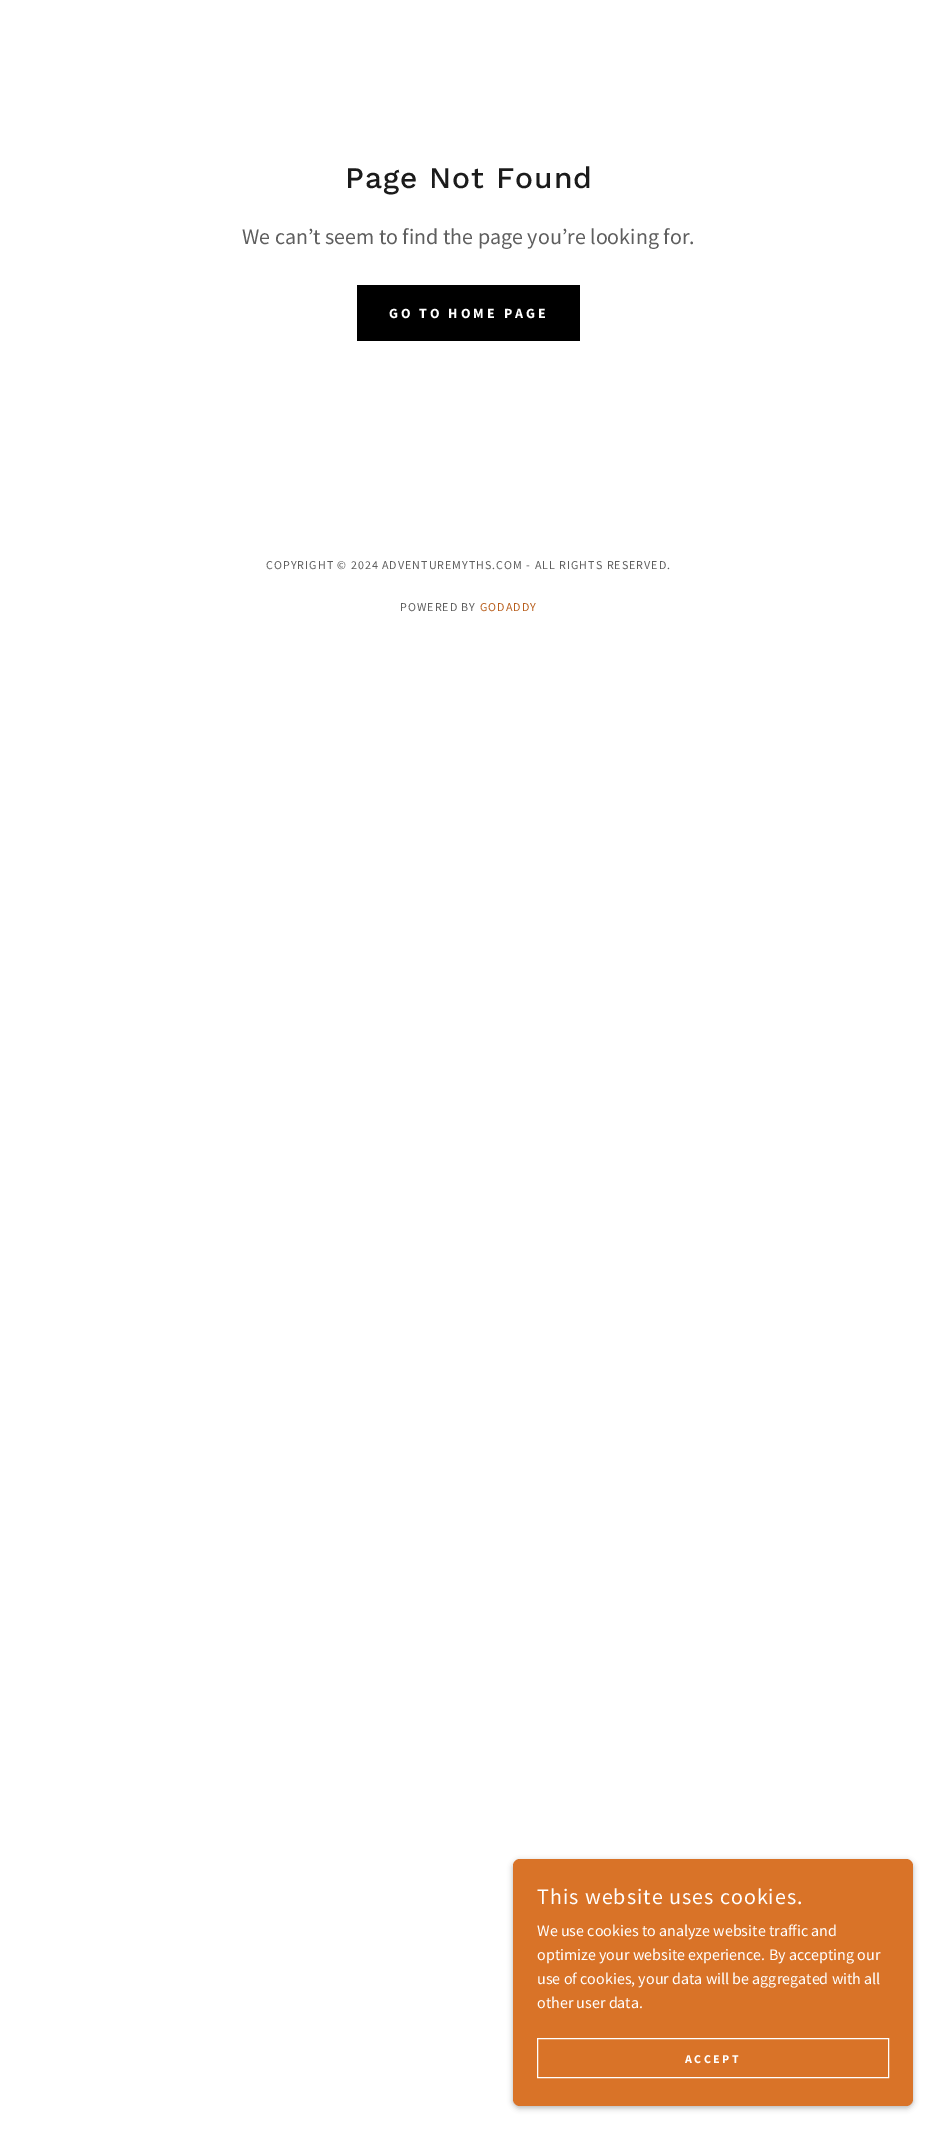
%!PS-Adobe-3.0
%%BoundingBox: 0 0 937 2130
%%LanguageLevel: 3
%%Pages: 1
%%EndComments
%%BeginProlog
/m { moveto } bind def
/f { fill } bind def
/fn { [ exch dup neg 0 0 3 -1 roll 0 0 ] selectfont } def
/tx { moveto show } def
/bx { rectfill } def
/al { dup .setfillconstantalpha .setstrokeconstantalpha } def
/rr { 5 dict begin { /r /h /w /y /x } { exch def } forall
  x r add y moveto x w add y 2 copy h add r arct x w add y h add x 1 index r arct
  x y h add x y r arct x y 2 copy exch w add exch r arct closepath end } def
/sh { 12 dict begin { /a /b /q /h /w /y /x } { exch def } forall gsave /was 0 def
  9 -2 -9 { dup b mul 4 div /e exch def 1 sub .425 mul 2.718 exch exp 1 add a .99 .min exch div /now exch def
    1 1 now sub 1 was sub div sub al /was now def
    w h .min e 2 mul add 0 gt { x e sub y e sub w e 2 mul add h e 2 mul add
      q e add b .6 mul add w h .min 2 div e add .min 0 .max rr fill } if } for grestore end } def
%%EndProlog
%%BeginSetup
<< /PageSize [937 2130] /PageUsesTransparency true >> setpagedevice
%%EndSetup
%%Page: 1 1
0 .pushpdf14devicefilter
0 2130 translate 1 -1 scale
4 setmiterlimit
1 setgray
0 0 937 2130 bx
/WorkSans-Medium 30 fn
0.106 setgray
345 188 m 1 0 (Page Not Found) ashow
/SourceSansPro-Regular 22 fn
0.369 setgray
(We can’t seem to find the page you’re looking for.) 242 244 tx
0 setgray
357 285 223 56 bx
/SourceSansPro-Bold 14 fn
1 setgray
389 318 m 3 0 (GO TO HOME PAGE) ashow
/SourceSansPro-Regular 12 fn
0.369 setgray
266 569 m 1 0 (COPYRIGHT © 2024 ADVENTUREMYTHS.COM - ALL RIGHTS RESERVED.) ashow
400 611 m 1 0 (POWERED BY) ashow
0.722 0.369 0.11 setrgbcolor
480 611 m 1 0 (GODADDY) ashow
0 setgray
513 1861 400 247 7 3 0.3 sh
0.851 0.451 0.157 setrgbcolor
513 1859 400 247 7 rr f
/SourceSansPro-Regular 22 fn
1 setgray
537 1904 m 1 0 (This website uses cookies.) ashow
/SourceSansPro-Regular 16 fn
(We use cookies to analyze website traffic and) 537 1936 tx
(optimize your website experience. By accepting our) 537 1960 tx
(use of cookies, your data will be aggregated with all) 537 1984 tx
(other user data.) 537 2008 tx
537.5 2038.5 351 39 rectstroke
/SourceSansPro-Bold 12 fn
685 2063 m 2.5 0 (ACCEPT) ashow
.poppdf14devicefilter showpage
%%EOF
